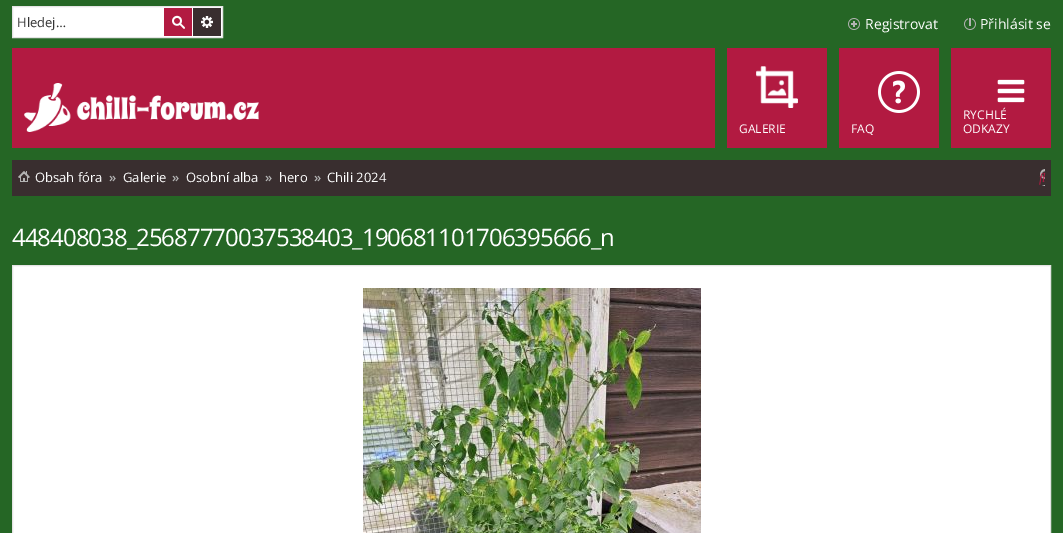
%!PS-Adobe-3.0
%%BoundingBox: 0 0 1063 533
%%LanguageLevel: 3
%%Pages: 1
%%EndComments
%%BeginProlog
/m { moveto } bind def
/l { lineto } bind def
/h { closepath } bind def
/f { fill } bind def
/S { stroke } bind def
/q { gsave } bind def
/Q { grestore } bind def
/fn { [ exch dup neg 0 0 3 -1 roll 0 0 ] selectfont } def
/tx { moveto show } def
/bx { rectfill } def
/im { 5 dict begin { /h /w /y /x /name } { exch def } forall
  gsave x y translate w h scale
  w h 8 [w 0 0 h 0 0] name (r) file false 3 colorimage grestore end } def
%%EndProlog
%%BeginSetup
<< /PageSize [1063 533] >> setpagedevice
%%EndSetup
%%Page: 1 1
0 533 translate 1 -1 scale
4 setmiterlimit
0.145 0.4 0.145 setrgbcolor
0 0 1063 533 bx
1 setgray
12.5 6.5 m 222.5 6.5 l 222.5 37.5 l 12.5 37.5 l h q f Q
0.894 setgray
S
/OpenSans-Regular 13 fn
0.2 setgray
(Hledej…) 17 27 tx
0.698 0.102 0.255 setrgbcolor
164 8 28 28 bx
(image0.raw) 172 15 13 14 im
0.224 0.18 0.184 setrgbcolor
193 8 28 28 bx
(image1.raw) 201 16 12 12 im
(image2.raw) 848 18 12 12 im
/OpenSans-Regular 14 fn
1 setgray
(Registrovat) 865 29 tx
(image3.raw) 964 18 12 12 im
(Přihlásit se) 980 29 tx
0.698 0.102 0.255 setrgbcolor
12 48 1039 100 bx
(image4.raw) 24 83 235 49 im
0.145 0.4 0.145 setrgbcolor
715 48 12 100 bx
(image5.raw) 756 66 42 42 im
/OpenSans-Regular 12 fn
1 setgray
(GALERIE) 739 133 tx
0.145 0.4 0.145 setrgbcolor
827 48 12 100 bx
(image6.raw) 878 71 42 42 im
1 setgray
(FAQ) 851 133 tx
0.145 0.4 0.145 setrgbcolor
939 48 12 100 bx
(image7.raw) 997 79 28 24 im
1 setgray
(RYCHLÉ) 963 119 tx
(ODKAZY) 963 133 tx
0.224 0.18 0.184 setrgbcolor
12 160 1039 36 bx
(image8.raw) 18 171 12 11 im
/OpenSans-Regular 13 fn
1 setgray
(Obsah fóra) 35 182 tx
/OpenSans-SemiBold 13 fn
0.706 setgray
(») 109 182 tx
/OpenSans-Regular 13 fn
1 setgray
(Galerie) 123 182 tx
/OpenSans-SemiBold 13 fn
0.706 setgray
(») 172 182 tx
/OpenSans-Regular 13 fn
1 setgray
(Osobní alba) 186 182 tx
/OpenSans-SemiBold 13 fn
0.706 setgray
(») 265 182 tx
/OpenSans-Regular 13 fn
1 setgray
(hero) 279 182 tx
/OpenSans-SemiBold 13 fn
0.706 setgray
(») 314 182 tx
/OpenSans-Regular 13 fn
1 setgray
(Chili 2024) 327 182 tx
(image9.raw) 1040 169 5 17 im
(image10.raw) 1039 172 7 13 im
/OpenSans-Regular 24 fn
12 246 m -1 0 (448408038_25687770037538403_190681101706395666_n) ashow
12.5 265.5 m 1050.5 265.5 l 1050.5 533.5 l 12.5 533.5 l h q f Q
0.894 setgray
S
(image11.raw) 363 288 338 245 im
showpage
%%EOF
